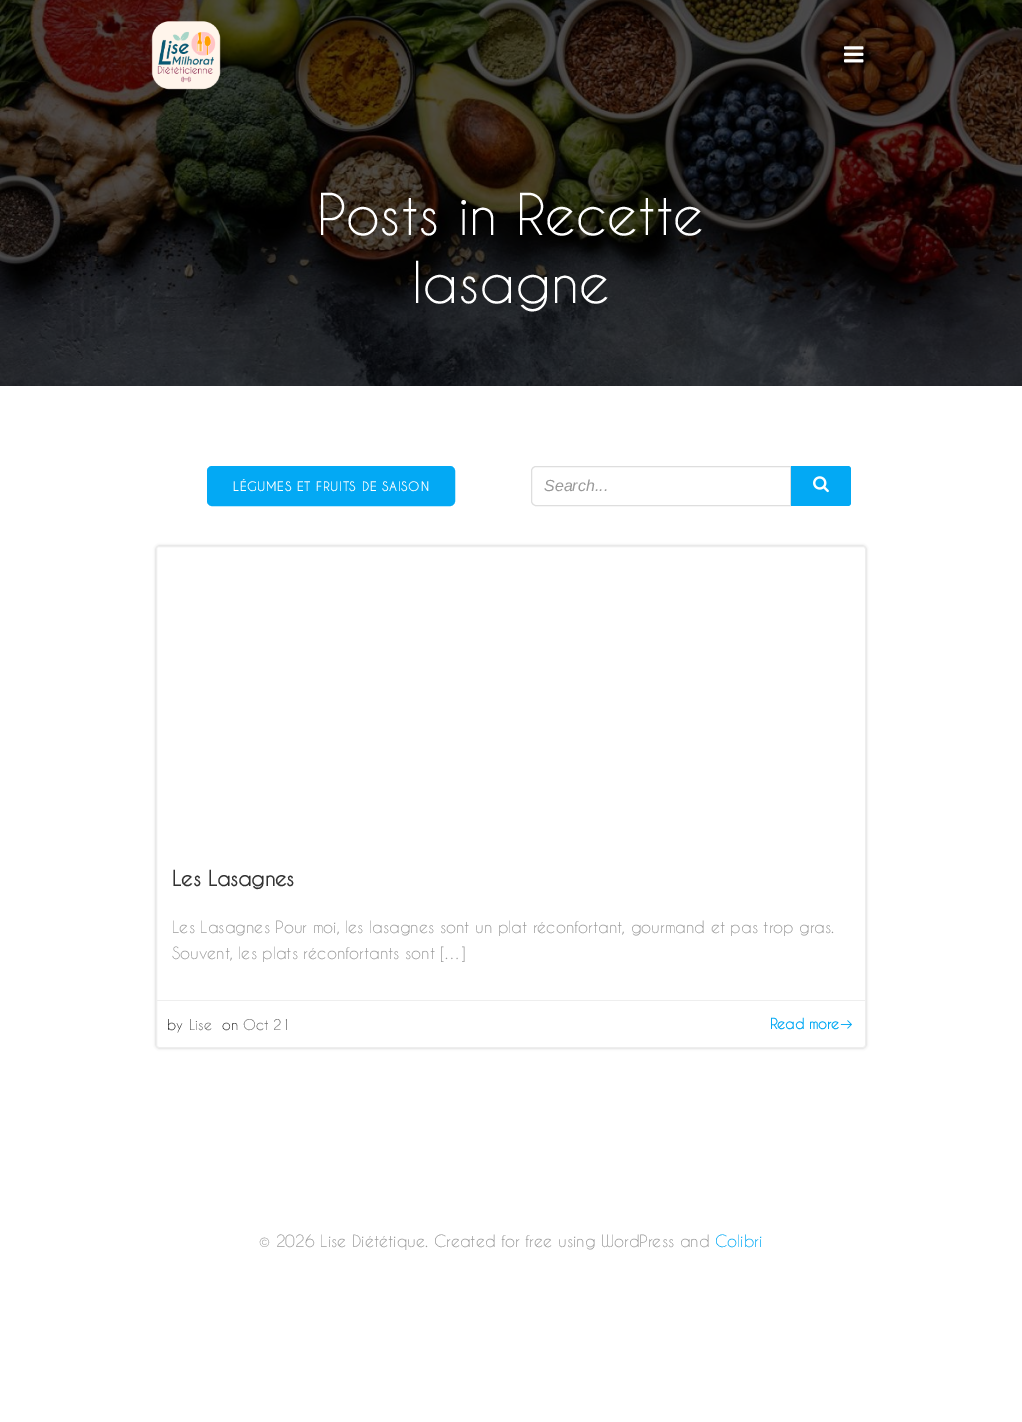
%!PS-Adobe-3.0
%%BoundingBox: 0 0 1022 1422
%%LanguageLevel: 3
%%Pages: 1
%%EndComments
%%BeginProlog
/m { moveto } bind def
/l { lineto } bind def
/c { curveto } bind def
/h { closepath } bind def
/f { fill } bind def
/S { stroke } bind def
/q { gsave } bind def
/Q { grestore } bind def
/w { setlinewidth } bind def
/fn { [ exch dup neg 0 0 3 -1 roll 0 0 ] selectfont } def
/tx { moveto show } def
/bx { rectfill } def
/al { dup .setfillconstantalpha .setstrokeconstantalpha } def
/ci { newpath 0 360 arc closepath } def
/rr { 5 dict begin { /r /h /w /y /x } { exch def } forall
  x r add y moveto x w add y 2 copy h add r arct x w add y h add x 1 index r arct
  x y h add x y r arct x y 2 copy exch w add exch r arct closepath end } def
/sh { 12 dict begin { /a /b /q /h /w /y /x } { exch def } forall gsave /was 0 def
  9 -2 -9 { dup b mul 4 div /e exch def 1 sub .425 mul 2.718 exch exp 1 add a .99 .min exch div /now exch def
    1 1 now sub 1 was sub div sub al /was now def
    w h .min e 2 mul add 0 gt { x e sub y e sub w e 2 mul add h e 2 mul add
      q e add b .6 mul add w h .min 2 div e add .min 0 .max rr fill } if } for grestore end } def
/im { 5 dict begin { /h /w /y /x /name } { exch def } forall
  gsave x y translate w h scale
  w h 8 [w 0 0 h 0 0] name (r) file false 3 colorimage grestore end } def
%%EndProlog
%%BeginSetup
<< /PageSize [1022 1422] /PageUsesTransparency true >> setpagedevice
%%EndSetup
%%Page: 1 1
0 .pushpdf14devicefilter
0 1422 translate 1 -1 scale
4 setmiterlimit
1 setgray
0 0 1022 1422 bx
(image2.raw) 0 0 1022 386 im
(image0.raw) 151 21 70 69 im
0.1 al
0 setgray
854 55 17 ci f
1 al
(image1.raw) 844 46 20 17 im
/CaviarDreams-Regular 54 fn
1 setgray
(Posts in Recette) 317 235 tx
(lasagne) 412 303 tx
0.012 0.663 0.957 setrgbcolor
208 467 246 38 4 rr q f Q
2 w
S
/CaviarDreams-Bold 12 fn
1 setgray
233 491 m 1 0 (LÉGUMES ET FRUITS DE SAISON) ashow
0.871 setgray
1 w
536 466.5 m 790.5 466.5 l 790.5 505.5 l 536 505.5 l 533.5 505.5 531.5 503.5 531.5 501 c 531.5 471 l 531.5 468.5 533.5 466.5 536 466.5 c h S
/LiberationSans-Italic 16 fn
0.6 setgray
(Search...) 544 491 tx
0.012 0.663 0.957 setrgbcolor
791 466 m 848 466 l 849.5 466 851 467.5 851 469 c 851 503 l 851 504.5 849.5 506 848 506 c 791 506 l h f
(image3.raw) 813 476 16 17 im
q
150 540 m 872 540 l 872 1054 l 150 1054 l h 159 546 m 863 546 l 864.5 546 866 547.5 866 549 c 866 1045 l 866 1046.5 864.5 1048 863 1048 c 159 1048 l 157.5 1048 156 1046.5 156 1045 c 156 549 l 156 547.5 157.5 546 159 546 c h eoclip newpath
0 setgray
156 546 710 502 3 1.5 0.2 sh
Q
0.933 setgray
156.5 546.5 709 501 2.5 rr S
/CaviarDreams-Bold 20 fn
0.2 setgray
(Les Lasagnes) 172 886 tx
/CaviarDreams-Regular 16 fn
0.6 setgray
(Les Lasagnes Pour moi, les lasagnes sont un plat réconfortant, gourmand et pas trop gras.) 172 933 tx
(Souvent, les plats réconfortants sont […]) 172 959 tx
0.933 setgray
157 1000 708 1 bx
/CaviarDreams-Regular 14 fn
0.2 setgray
(by) 167 1030 tx
0.4 setgray
(Lise) 189 1030 tx
0.2 setgray
(on) 222 1030 tx
0.4 setgray
(Oct 21) 243 1030 tx
/CaviarDreams-Bold 14 fn
0.012 0.663 0.957 setrgbcolor
(Read more) 770 1029 tx
(image4.raw) 840 1020 12 9 im
/CaviarDreams-Regular 16 fn
0.6 setgray
(© 2026 Lise Diététique. Created for free using WordPress and) 259 1247 tx
0.012 0.663 0.957 setrgbcolor
(Colibri) 715 1247 tx
.poppdf14devicefilter showpage
%%EOF
